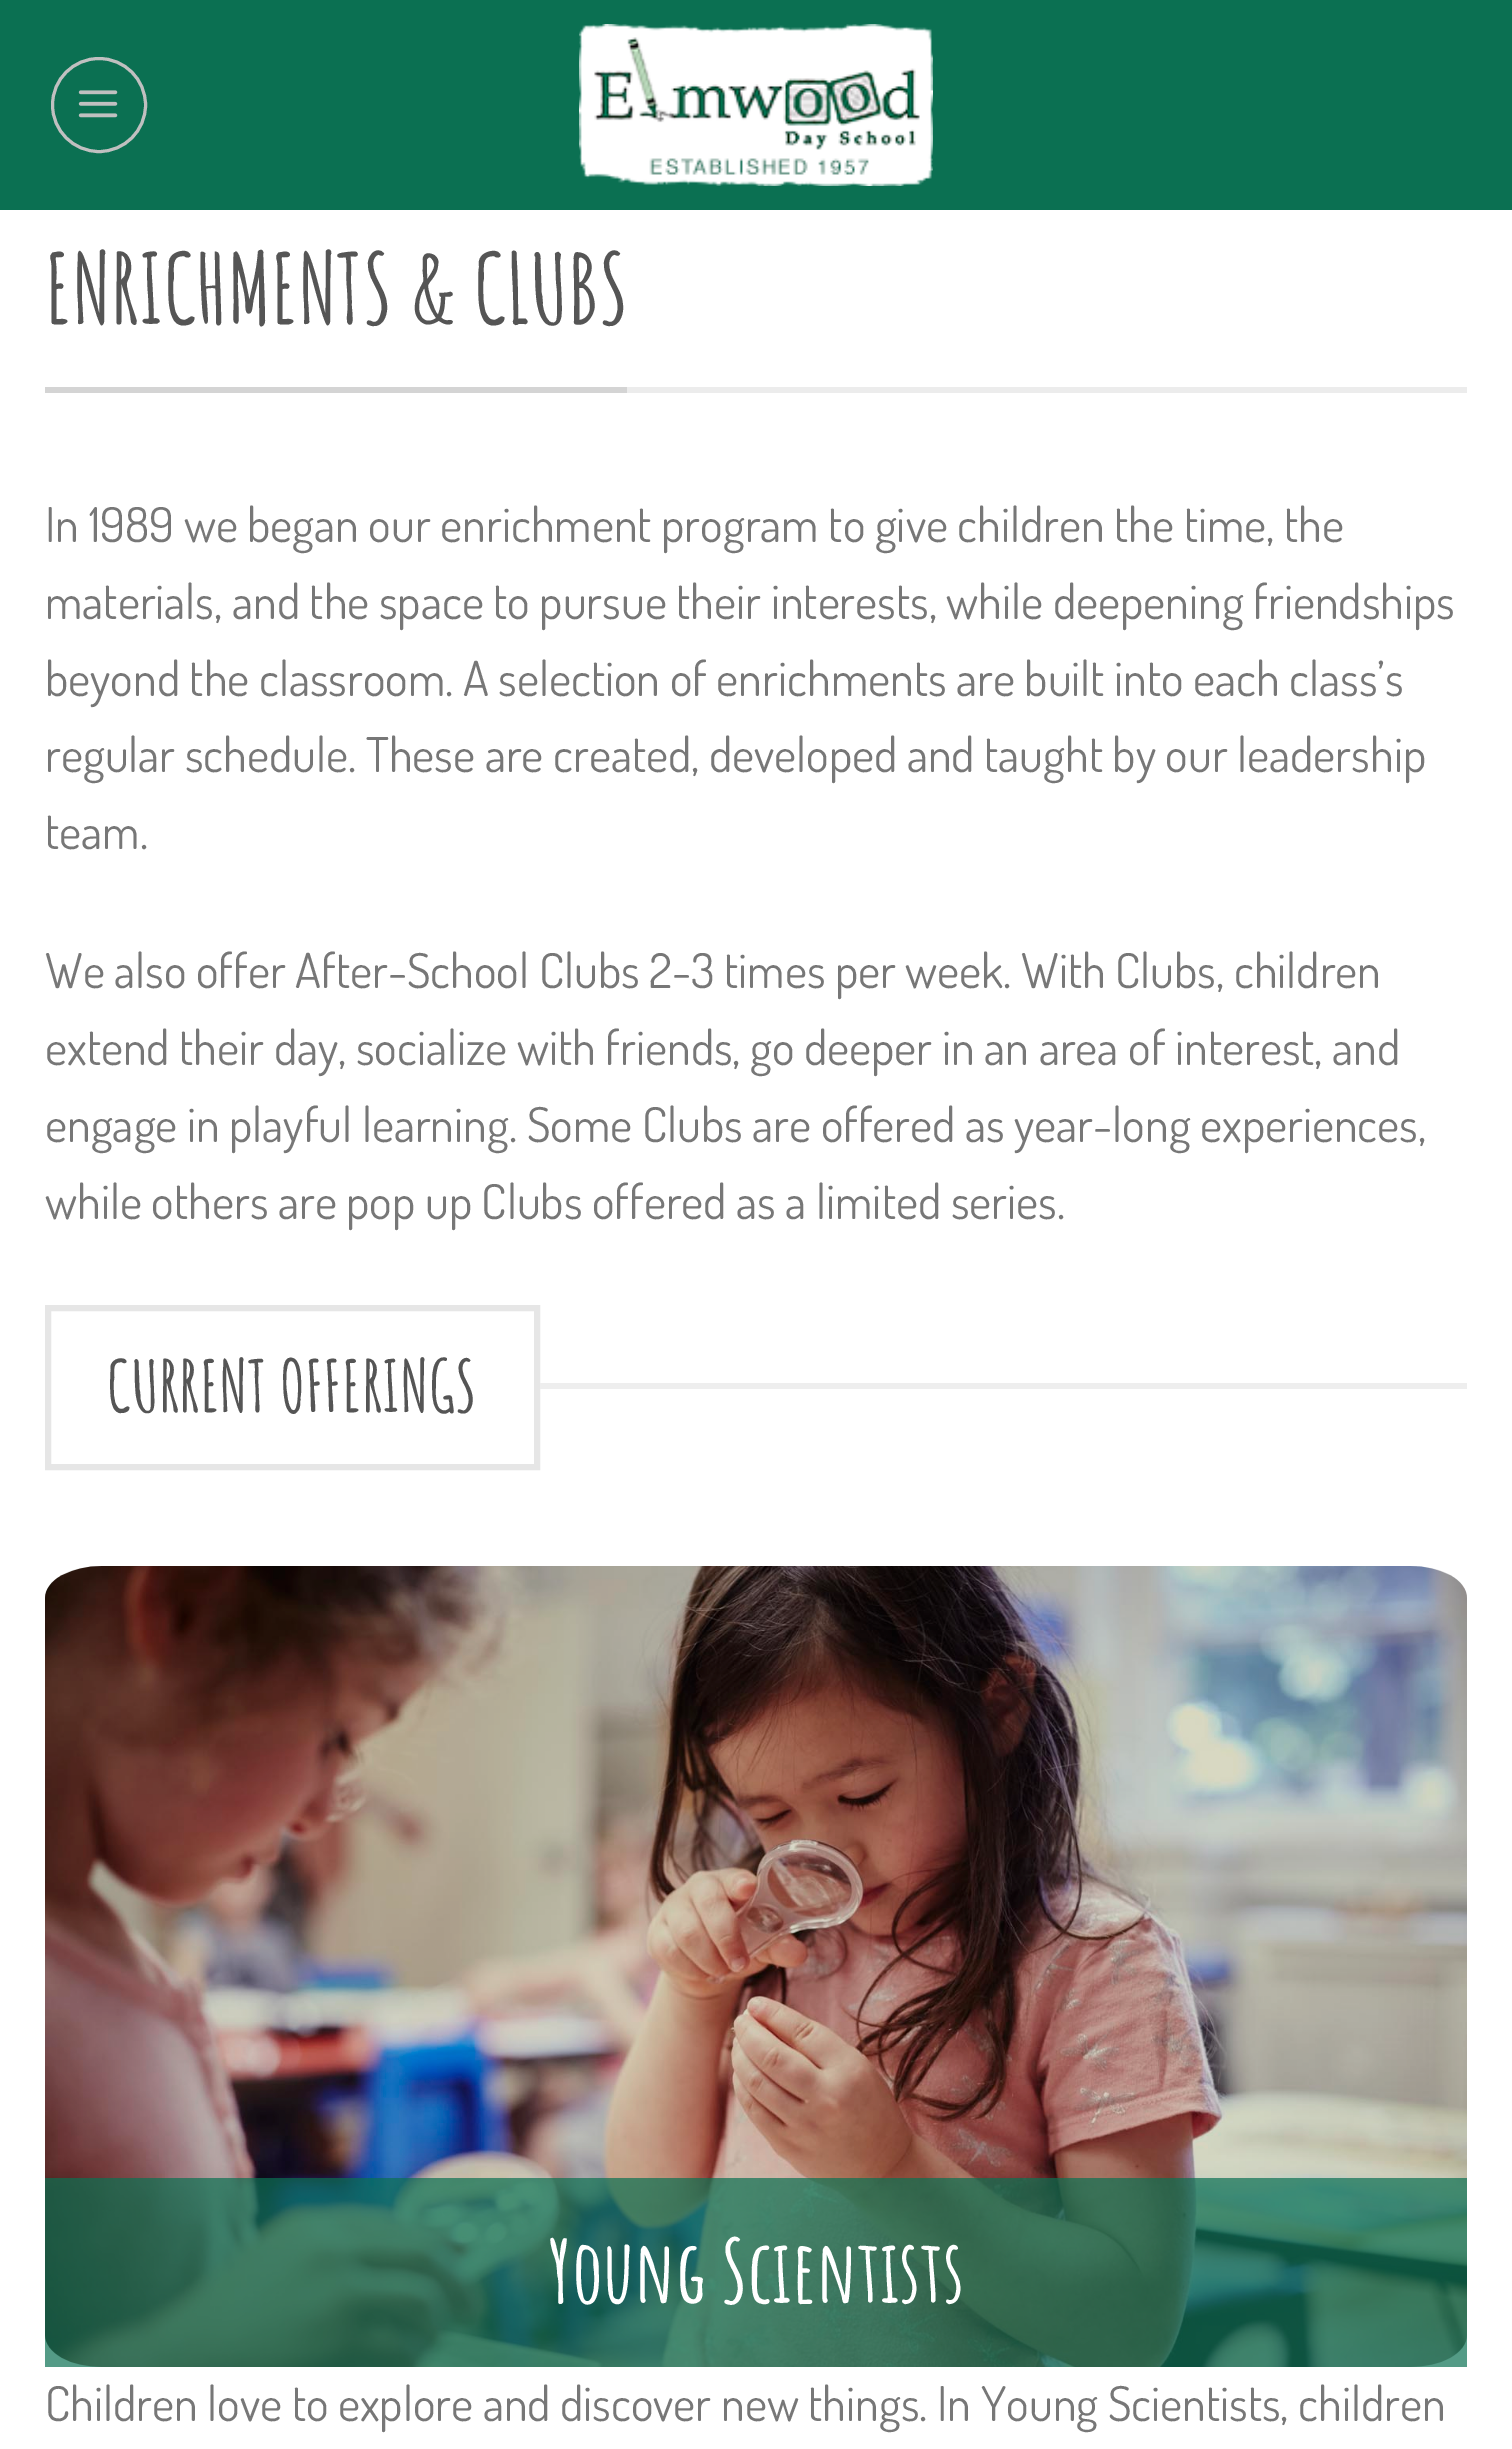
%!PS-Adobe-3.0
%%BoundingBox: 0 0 1512 2449
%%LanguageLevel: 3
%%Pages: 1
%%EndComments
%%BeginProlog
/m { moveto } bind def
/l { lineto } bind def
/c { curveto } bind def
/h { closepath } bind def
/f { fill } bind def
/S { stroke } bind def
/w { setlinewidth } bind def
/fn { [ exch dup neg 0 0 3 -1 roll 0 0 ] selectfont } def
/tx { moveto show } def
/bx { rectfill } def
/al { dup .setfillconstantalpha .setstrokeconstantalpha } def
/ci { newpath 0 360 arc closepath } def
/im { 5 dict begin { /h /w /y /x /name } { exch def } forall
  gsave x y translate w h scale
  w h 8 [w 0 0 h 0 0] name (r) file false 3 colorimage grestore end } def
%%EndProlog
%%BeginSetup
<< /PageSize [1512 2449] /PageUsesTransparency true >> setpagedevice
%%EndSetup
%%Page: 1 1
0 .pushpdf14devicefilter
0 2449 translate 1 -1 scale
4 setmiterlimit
1 setgray
0 0 1512 2449 bx
0.043 0.439 0.322 setrgbcolor
0 0 1512 210 bx
0.753 setgray
3 w
99 105 46.5 ci S
(image0.raw) 78 90 40 28 im
(image1.raw) 579 24 354 162 im
0.925 setgray
627 387 840 6 bx
0.831 setgray
45 387 582 6 bx
/AmaticSC-Bold 96 fn
0.333 setgray
(ENRICHMENTS & CLUBS) 45 324 tx
/Dosis-Regular 48 fn
0.467 setgray
(In 1989 we began our enrichment program to give children the time, the) 45 542 tx
(materials, and the space to pursue their interests, while deepening friendships) 45 619 tx
(beyond the classroom. A selection of enrichments are built into each class’s) 45 696 tx
(regular schedule. These are created, developed and taught by our leadership) 45 772 tx
(team.) 45 849 tx
(We also offer After-School Clubs 2-3 times per week. With Clubs, children) 45 988 tx
(extend their day, socialize with friends, go deeper in an area of interest, and) 45 1065 tx
(engage in playful learning. Some Clubs are offered as year-long experiences,) 45 1142 tx
(while others are pop up Clubs offered as a limited series.) 45 1219 tx
0.902 setgray
6 w
48 1308 489 159 rectstroke
/AmaticSC-Bold 70.5 fn
0.333 setgray
(CURRENT OFFERINGS) 107 1412 tx
0.933 setgray
540 1383 927 6 bx
(image2.raw) 45 1566 1422 801 im
0.15 al
0 setgray
102 1566 m 70 1566 45 1580 45 1598 c 45 2335 l 45 2353 70 2367 102 2367 c 1410 2367 l 1442 2367 1467 2353 1467 2335 c 1467 1598 l 1467 1580 1442 1566 1410 1566 c h f
0.7 al
0.043 0.439 0.322 setrgbcolor
45 2178 1422 189 bx
/AmaticSC-Bold 86.5 fn
1 al
1 setgray
(Young Scientists) 549 2303 tx
/Dosis-Regular 48 fn
0.467 setgray
(Children love to explore and discover new things. In Young Scientists, children) 45 2421 tx
.poppdf14devicefilter showpage
%%EOF
